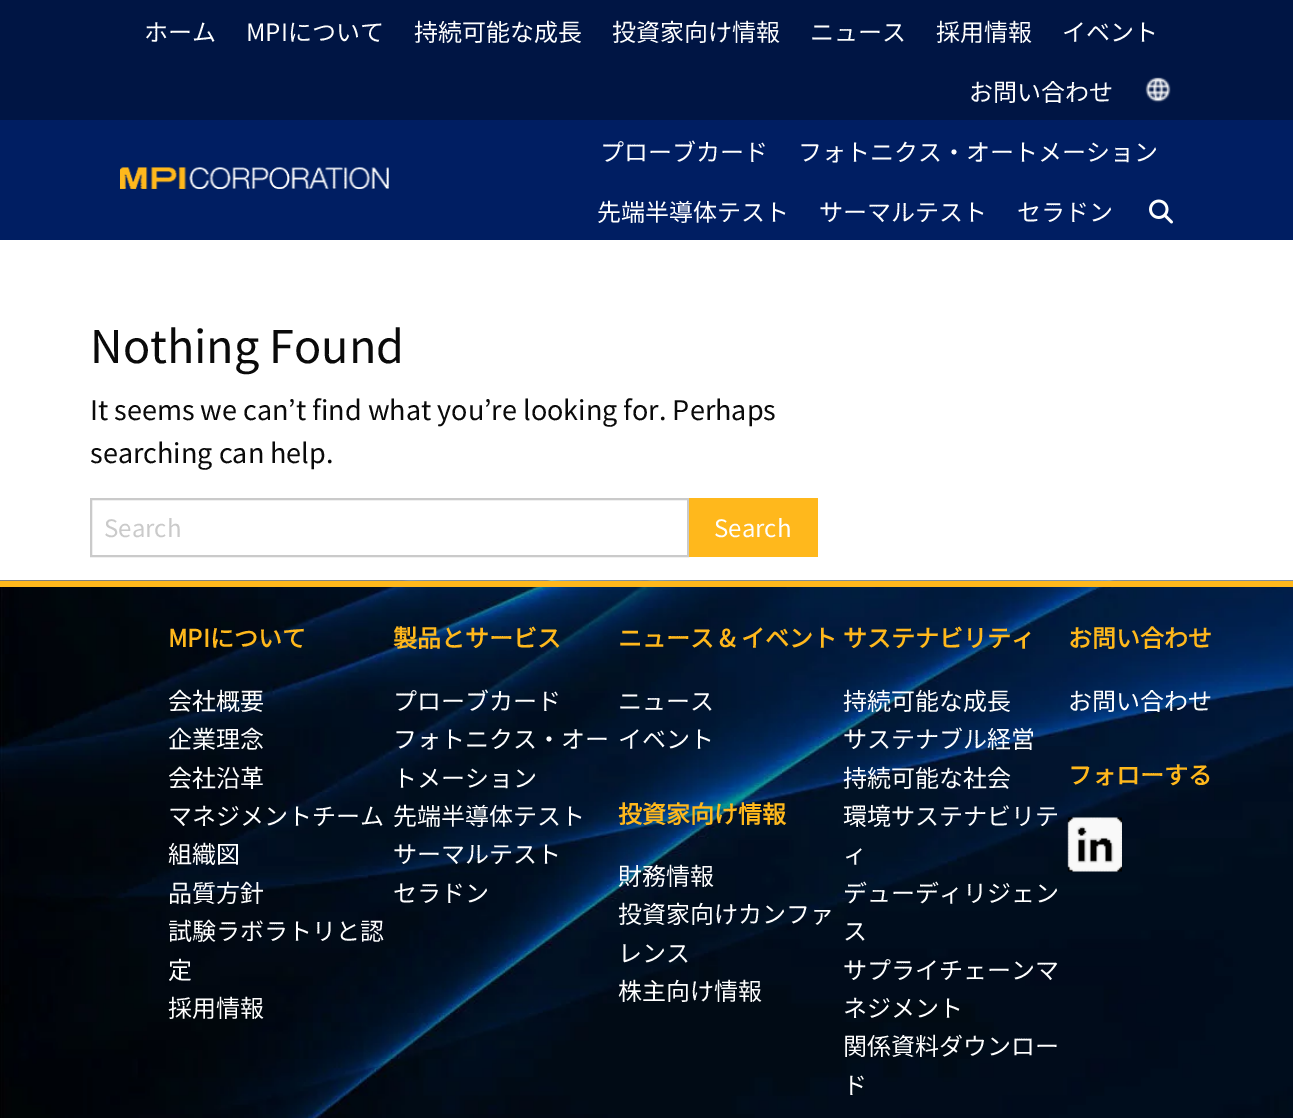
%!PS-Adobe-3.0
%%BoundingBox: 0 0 1293 1118
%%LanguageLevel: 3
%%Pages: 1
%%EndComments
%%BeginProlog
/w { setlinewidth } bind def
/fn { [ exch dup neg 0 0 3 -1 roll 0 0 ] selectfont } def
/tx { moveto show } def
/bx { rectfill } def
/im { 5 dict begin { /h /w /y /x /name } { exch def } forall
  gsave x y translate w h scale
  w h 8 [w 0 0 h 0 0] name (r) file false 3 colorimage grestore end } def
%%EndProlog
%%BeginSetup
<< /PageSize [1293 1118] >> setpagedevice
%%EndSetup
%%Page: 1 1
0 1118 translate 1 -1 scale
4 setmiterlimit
1 setgray
0 0 1293 1118 bx
0 0.082 0.267 setrgbcolor
0 0 1293 120 bx
/NotoSansJP-Thin 24 fn
0.996 setgray
(ホーム) 144 41 tx
(MPIについて) 246 41 tx
(持続可能な成長) 414 41 tx
(投資家向け情報) 612 41 tx
(ニュース) 810 41 tx
(採用情報) 936 41 tx
(イベント) 1062 41 tx
(お問い合わせ) 969 101 tx
(image0.raw) 1145 77 26 26 im
0 0.118 0.384 setrgbcolor
0 120 1293 120 bx
(image1.raw) 120 167 269 22 im
0.996 setgray
(プローブカード) 600 161 tx
(フォトニクス・オートメーション) 798 161 tx
(先端半導体テスト) 597 221 tx
(サーマルテスト) 819 221 tx
(セラドン) 1017 221 tx
(image2.raw) 1149 199 24 25 im
/NotoSansJP-Thin 45 fn
0.039 setgray
(Nothing Found) 90 363 tx
/NotoSansJP-Thin 27 fn
(It seems we can’t find what you’re looking for. Perhaps) 90 420 tx
(searching can help.) 90 463 tx
0.792 setgray
2 w
91 499 597 57 rectstroke
/NotoSansJP-Thin 24 fn
(Search) 104 537 tx
1 0.722 0.11 setrgbcolor
689 498 129 59 bx
0.996 setgray
(Search) 714 537 tx
(image3.raw) 0 580 1293 538 im
1 0.722 0.11 setrgbcolor
0 581 1293 6 bx
/NotoSansJP-Bold 24 fn
(MPIについて) 168 647 tx
/NotoSansJP-Thin 24 fn
0.996 setgray
(会社概要) 168 710 tx
(企業理念) 168 748 tx
(会社沿革) 168 787 tx
(マネジメントチーム) 168 825 tx
(組織図) 168 863 tx
(品質方針) 168 902 tx
(試験ラボラトリと認) 168 940 tx
(定) 168 979 tx
(採用情報) 168 1017 tx
/NotoSansJP-Bold 24 fn
1 0.722 0.11 setrgbcolor
(製品とサービス) 393 647 tx
/NotoSansJP-Thin 24 fn
0.996 setgray
(プローブカード) 393 710 tx
(フォトニクス・オー) 393 748 tx
(トメーション) 393 787 tx
(先端半導体テスト) 393 825 tx
(サーマルテスト) 393 863 tx
(セラドン) 393 902 tx
/NotoSansJP-Bold 24 fn
1 0.722 0.11 setrgbcolor
(ニュース & イベント) 618 647 tx
/NotoSansJP-Thin 24 fn
0.996 setgray
(ニュース) 618 710 tx
(イベント) 618 748 tx
/NotoSansJP-Bold 24 fn
1 0.722 0.11 setrgbcolor
(投資家向け情報) 618 823 tx
/NotoSansJP-Thin 24 fn
0.996 setgray
(財務情報) 618 885 tx
(投資家向けカンファ) 618 923 tx
(レンス) 618 962 tx
(株主向け情報) 618 1000 tx
/NotoSansJP-Bold 24 fn
1 0.722 0.11 setrgbcolor
(サステナビリティ) 843 647 tx
/NotoSansJP-Thin 24 fn
0.996 setgray
(持続可能な成長) 843 710 tx
(サステナブル経営) 843 748 tx
(持続可能な社会) 843 787 tx
(環境サステナビリテ) 843 825 tx
(ィ) 843 863 tx
(デューディリジェン) 843 902 tx
(ス) 843 940 tx
(サプライチェーンマ) 843 979 tx
(ネジメント) 843 1017 tx
(関係資料ダウンロー) 843 1055 tx
(ド) 843 1094 tx
/NotoSansJP-Bold 24 fn
1 0.722 0.11 setrgbcolor
(お問い合わせ) 1068 647 tx
/NotoSansJP-Thin 24 fn
0.996 setgray
(お問い合わせ) 1068 710 tx
/NotoSansJP-Bold 24 fn
1 0.722 0.11 setrgbcolor
(フォローする) 1068 784 tx
(image4.raw) 1067 817 55 55 im
showpage
%%EOF
